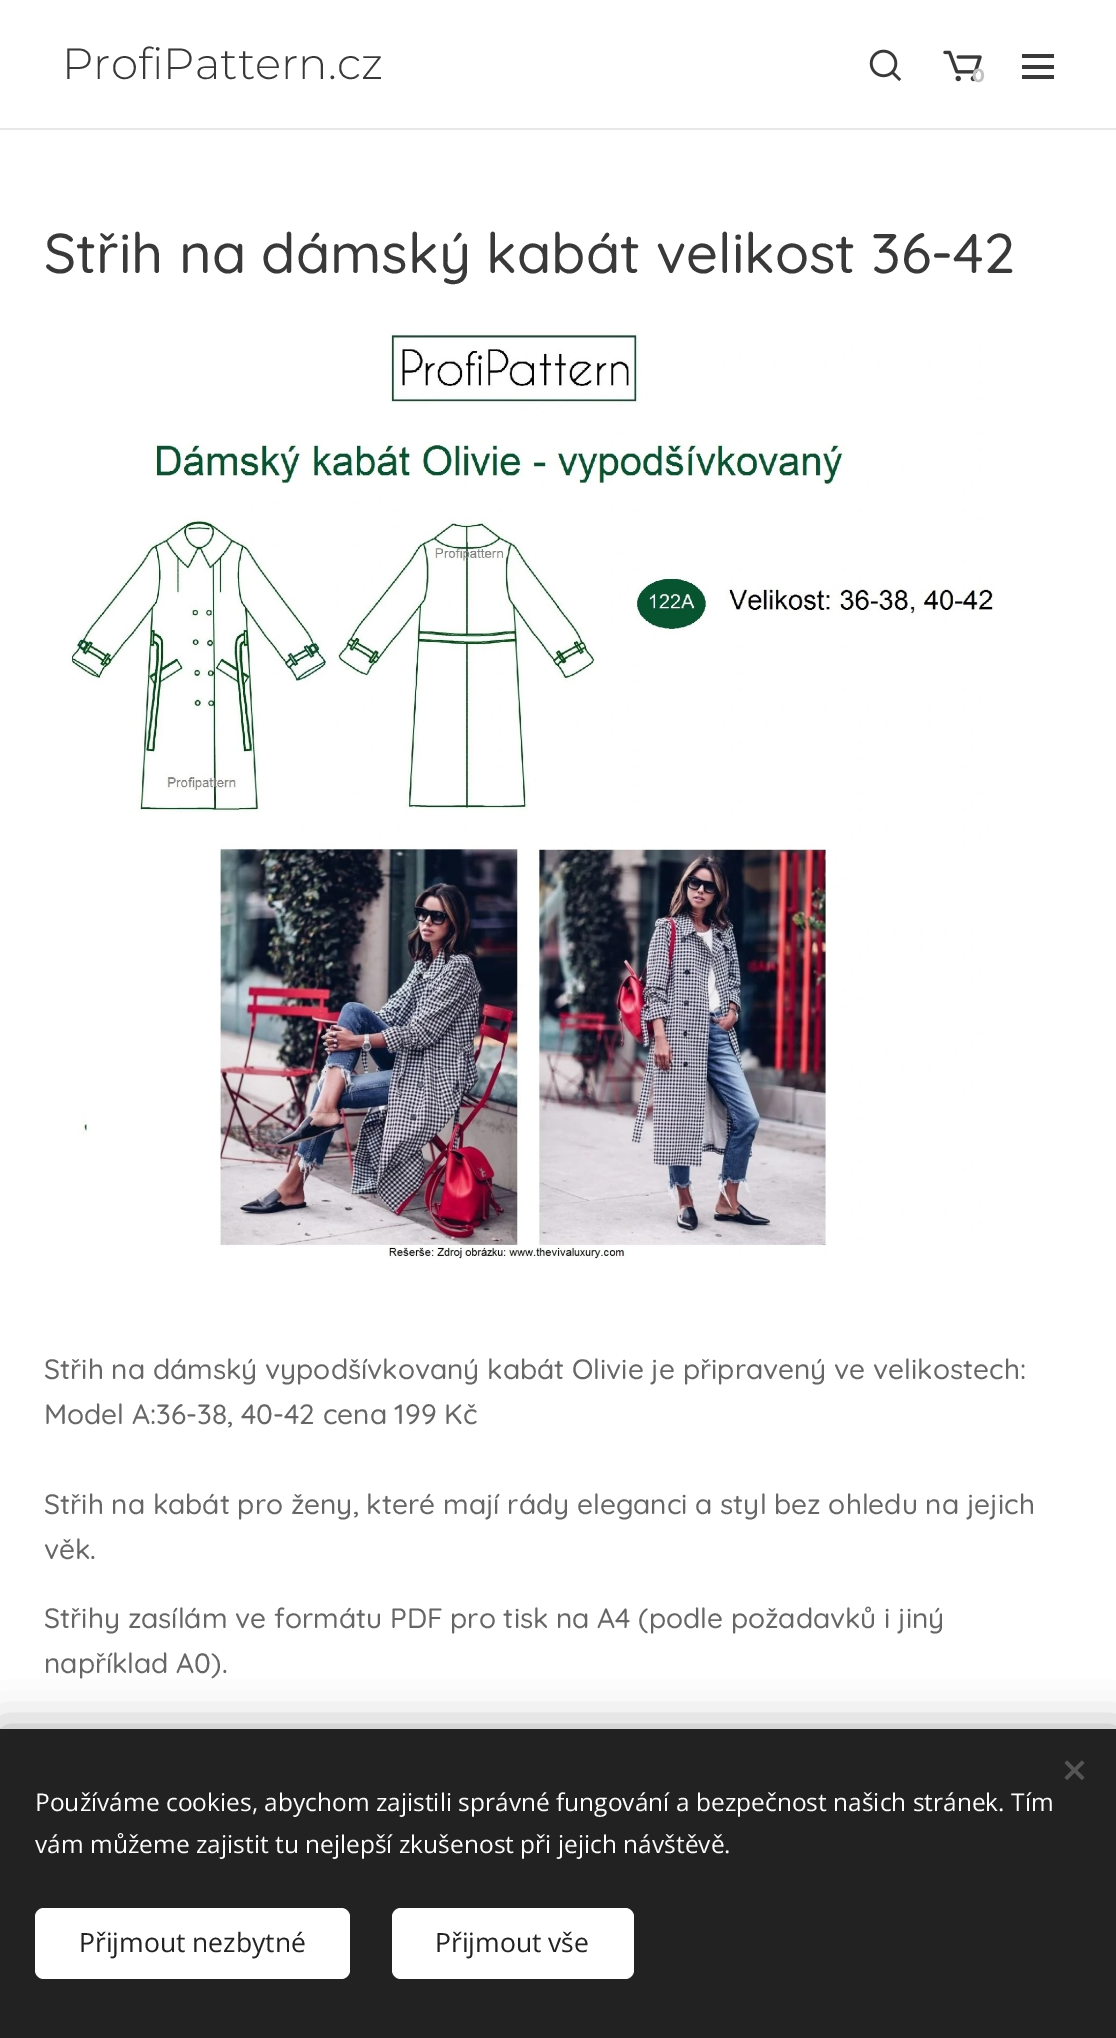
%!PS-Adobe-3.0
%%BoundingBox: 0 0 1116 2038
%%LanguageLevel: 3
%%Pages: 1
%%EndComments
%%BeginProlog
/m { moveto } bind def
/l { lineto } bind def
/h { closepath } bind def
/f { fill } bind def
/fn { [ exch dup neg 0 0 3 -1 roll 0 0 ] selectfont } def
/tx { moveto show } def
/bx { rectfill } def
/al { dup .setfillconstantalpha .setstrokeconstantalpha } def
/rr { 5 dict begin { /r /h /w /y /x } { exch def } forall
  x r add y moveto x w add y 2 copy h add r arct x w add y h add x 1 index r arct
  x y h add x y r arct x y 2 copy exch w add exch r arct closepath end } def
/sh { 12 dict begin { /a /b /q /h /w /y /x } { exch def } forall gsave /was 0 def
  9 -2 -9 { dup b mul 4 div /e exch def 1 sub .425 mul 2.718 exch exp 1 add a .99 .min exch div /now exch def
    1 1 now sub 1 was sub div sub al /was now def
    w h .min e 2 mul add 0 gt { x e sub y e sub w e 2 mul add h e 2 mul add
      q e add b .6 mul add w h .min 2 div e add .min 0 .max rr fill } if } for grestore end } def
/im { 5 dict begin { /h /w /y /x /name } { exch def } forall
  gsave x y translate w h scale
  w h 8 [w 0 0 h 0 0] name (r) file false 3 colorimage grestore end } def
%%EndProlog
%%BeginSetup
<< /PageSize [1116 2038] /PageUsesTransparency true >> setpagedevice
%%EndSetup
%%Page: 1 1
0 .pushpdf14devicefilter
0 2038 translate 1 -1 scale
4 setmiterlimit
1 setgray
0 0 1116 2038 bx
/Montserrat-Light 43.75 fn
0.224 setgray
(ProfiPattern.cz) 62 79 tx
(image0.raw) 869 49 33 33 im
(image1.raw) 943 50 39 32 im
/Montserrat-Bold 19 fn
0.761 setgray
(0) 972 82 tx
0.224 setgray
1022 65 32 4 bx
1022 54 32 4 bx
1022 75 32 4 bx
0.91 setgray
0 128 1116 2 bx
/Quicksand-Medium 56 fn
0.224 setgray
(Střih na dámský kabát velikost 36-42) 44 273 tx
(image2.raw) 69 332 925 927 im
/Quicksand-Medium 28 fn
0.4 setgray
(Střih na dámský vypodšívkovaný kabát Olivie je připravený ve velikostech:) 44 1379 tx
(Model A:36-38, 40-42 cena 199 Kč) 44 1424 tx
(Střih na kabát pro ženy, které mají rády eleganci a styl bez ohledu na jejich) 44 1514 tx
(věk.) 44 1559 tx
(Střihy zasílám ve formátu PDF pro tisk na A4 \(podle požadavků i jiný) 44 1628 tx
(například A0\).) 44 1673 tx
0 setgray
0 1729 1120 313 0 22 0.33 sh
0.133 setgray
0 1729 1116 309 bx
0.333 setgray
1064.5 1777.5 m 1082 1760.5 l 1084.5 1763 l 1067 1780 l h f
1067 1760.5 m 1084.5 1777.5 l 1082 1780 l 1064.5 1763 l h f
/OpenSans-Regular 24.5 fn
1 setgray
(Používáme cookies, abychom zajistili správné fungování a bezpečnost našich stránek. Tím) 35 1811 tx
(vám můžeme zajistit tu nejlepší zkušenost při jejich návštěvě.) 35 1853 tx
35 1908 315 71 9 rr f
/OpenSans-Regular 26.5 fn
0.133 setgray
(Přijmout nezbytné) 79 1952 tx
1 setgray
392 1908 242 71 9 rr f
0.133 setgray
(Přijmout vše) 435 1952 tx
.poppdf14devicefilter showpage
%%EOF
